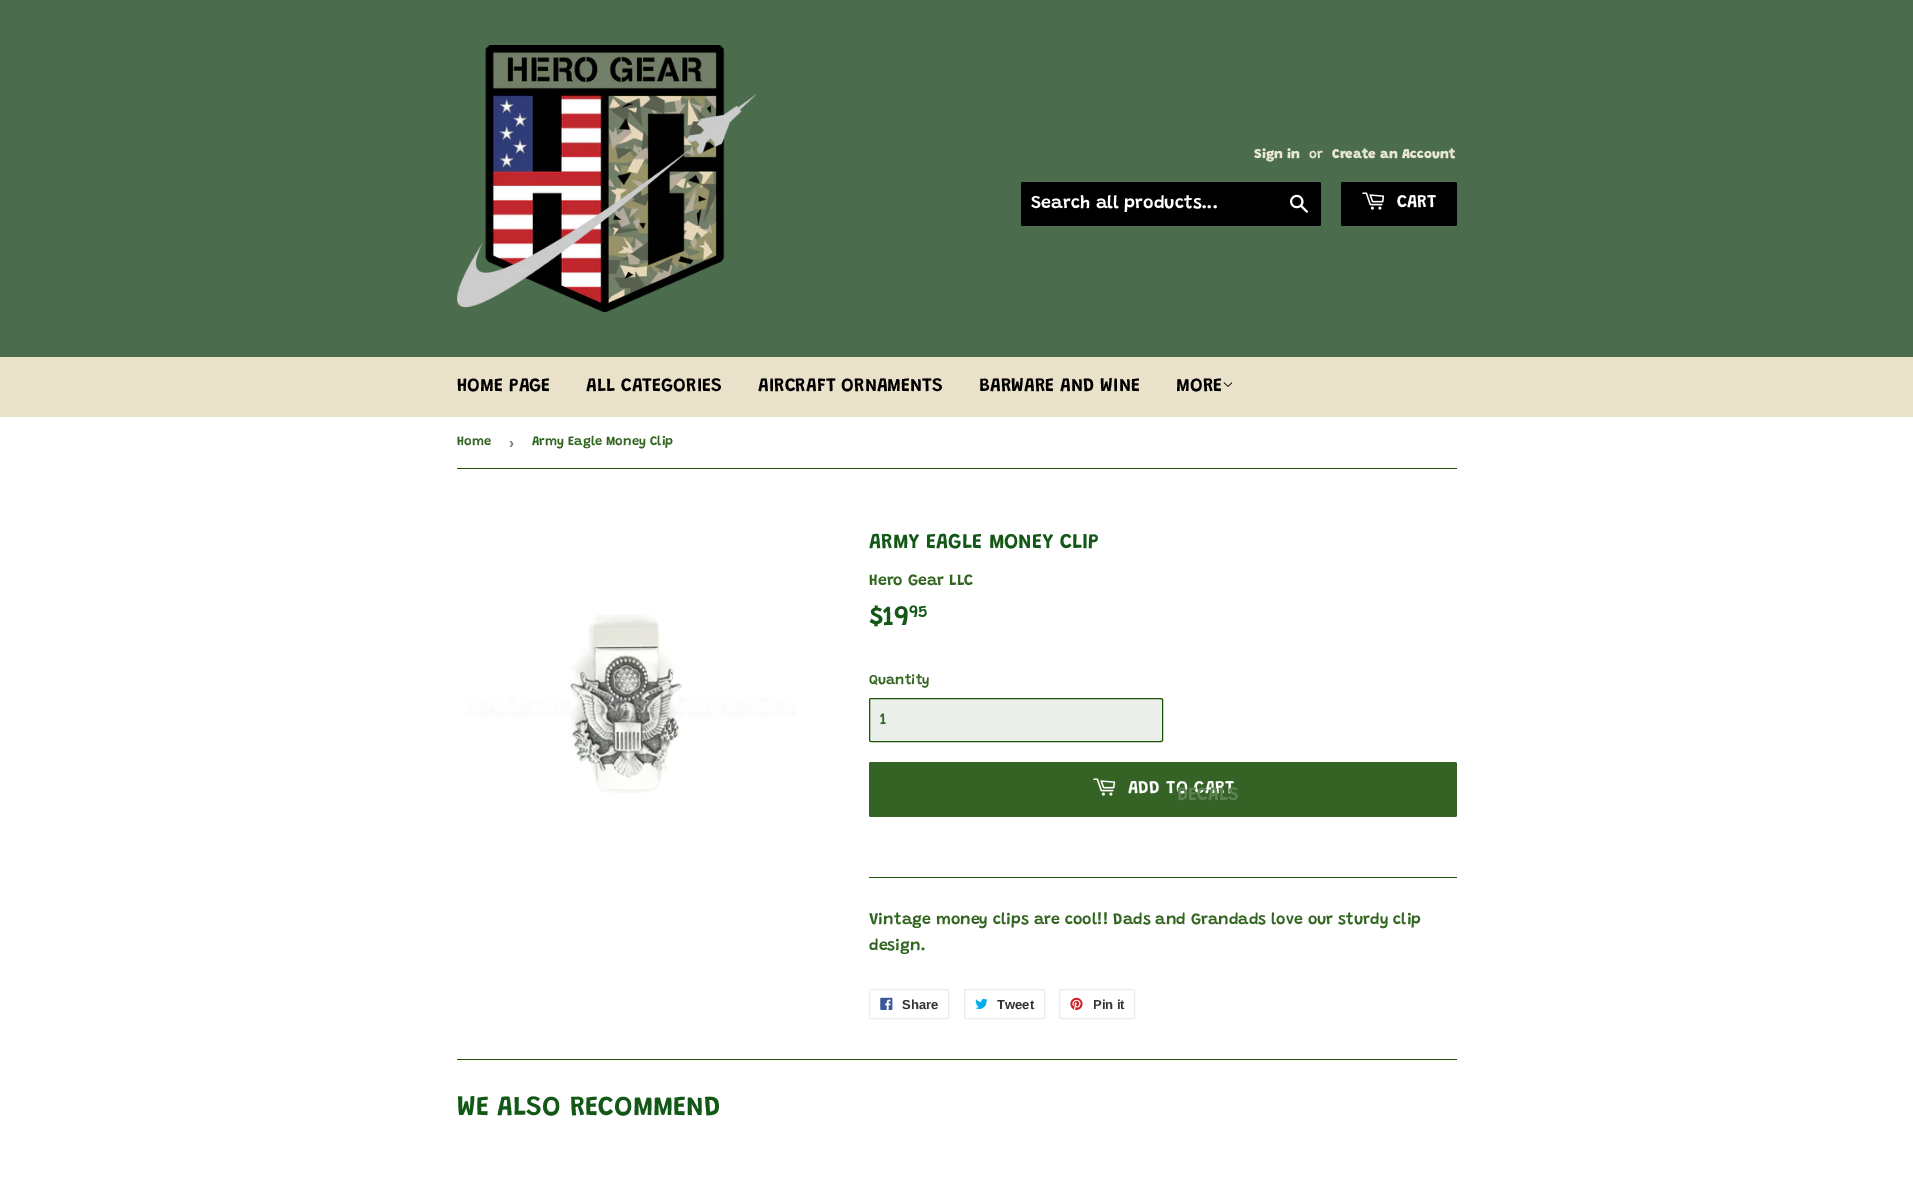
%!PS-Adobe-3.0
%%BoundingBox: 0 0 1913 1189
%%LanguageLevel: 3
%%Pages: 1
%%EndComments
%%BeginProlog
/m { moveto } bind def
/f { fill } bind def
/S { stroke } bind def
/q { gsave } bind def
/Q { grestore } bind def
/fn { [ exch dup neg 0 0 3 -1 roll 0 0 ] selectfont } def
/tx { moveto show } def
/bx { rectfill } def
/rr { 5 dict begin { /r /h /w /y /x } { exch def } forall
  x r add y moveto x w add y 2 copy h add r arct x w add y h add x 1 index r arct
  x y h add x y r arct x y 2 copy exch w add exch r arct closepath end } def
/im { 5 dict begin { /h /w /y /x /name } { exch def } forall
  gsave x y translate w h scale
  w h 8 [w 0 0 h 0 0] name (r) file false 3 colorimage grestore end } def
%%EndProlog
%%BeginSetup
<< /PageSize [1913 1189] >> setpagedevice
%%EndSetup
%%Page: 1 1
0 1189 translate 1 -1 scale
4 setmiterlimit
1 setgray
0 0 1913 1189 bx
0.298 0.427 0.302 setrgbcolor
0 0 1913 357 bx
(image0.raw) 457 45 300 267 im
/Grandstander-Black 13.5 fn
0.91 0.91 0.824 setrgbcolor
(Sign in) 1254 158 tx
/Grandstander-SemiBold 13.5 fn
(or) 1309 158 tx
/Grandstander-Black 13.5 fn
(Create an Account) 1332 158 tx
0 setgray
1021 182 300 44 2 rr f
/Grandstander-SemiBold 18 fn
1 setgray
(Search all products...) 1031 208 tx
(image1.raw) 1290 194 18 19 im
0 setgray
1341 182 116 44 2 rr f
(image2.raw) 1362 192 23 18 im
1 setgray
(CART) 1397 207 tx
0.914 0.882 0.788 setrgbcolor
0 357 1913 60 bx
/Grandstander-SemiBold 19 fn
0 setgray
(HOME PAGE) 457 391 tx
(ALL CATEGORIES) 586 391 tx
(AIRCRAFT ORNAMENTS) 758 391 tx
(BARWARE AND WINE) 979 391 tx
(MORE) 1176 391 tx
(image3.raw) 1223 382 10 5 im
0.208 0.388 0.149 setrgbcolor
869 762 588 55 2 rr f
/Grandstander-SemiBold 18 fn
1 setgray
1128 793 m 1 0 32 (ADD TO CART) widthshow
/Grandstander-SemiBold 19 fn
0.365 0.51 0.318 setrgbcolor
(DECALS) 1177 800 tx
0.118 0.325 0.047 setrgbcolor
457 468 1000 1 bx
/Grandstander-SemiBold 13 fn
0.192 0.396 0.125 setrgbcolor
(Home) 457 445 tx
/LiberationSans-Bold 15 fn
0.463 setgray
(›) 509 448 tx
/Grandstander-SemiBold 13 fn
0.192 0.396 0.125 setrgbcolor
(Army Eagle Money Clip) 532 445 tx
(image4.raw) 465 614 331 179 im
/Grandstander-SemiBold 21.25 fn
0.075 0.345 0.086 setrgbcolor
(ARMY EAGLE MONEY CLIP) 869 548 tx
/Grandstander-SemiBold 16 fn
0.192 0.396 0.125 setrgbcolor
(Hero Gear LLC) 869 585 tx
/Grandstander-SemiBold 27.75 fn
0.075 0.345 0.086 setrgbcolor
($19) 869 625 tx
/Grandstander-SemiBold 17 fn
(95) 909 617 tx
/Grandstander-SemiBold 14 fn
0.192 0.396 0.125 setrgbcolor
(Quantity) 869 684 tx
0.918 0.941 0.914 setrgbcolor
869.5 698.5 293 43 1.5 rr q f Q
0.118 0.325 0.047 setrgbcolor
S
/Grandstander-SemiBold 16 fn
0.192 0.396 0.125 setrgbcolor
(1) 880 724 tx
(image5.raw) 1093 778 23 18 im
0.118 0.325 0.047 setrgbcolor
869 877 588 1 bx
0.192 0.396 0.125 setrgbcolor
(Vintage money clips are cool!! Dads and Grandads love our sturdy clip) 869 924 tx
(design.) 869 950 tx
0.925 setgray
869.5 989.5 79 29 1.5 rr S
(image6.raw) 880 997 13 13 im
/LiberationSans-Bold 13 fn
0.2 setgray
(Share) 902 1009 tx
0.925 setgray
964.5 989.5 80 29 1.5 rr S
(image7.raw) 975 998 13 11 im
0.2 setgray
(Tweet) 997 1009 tx
0.925 setgray
1059.5 989.5 75 29 1.5 rr S
(image8.raw) 1070 997 13 13 im
0.2 setgray
(Pin it) 1093 1009 tx
0.118 0.325 0.047 setrgbcolor
457 1059 1000 1 bx
/Grandstander-SemiBold 27.75 fn
0.075 0.345 0.086 setrgbcolor
(WE ALSO RECOMMEND) 457 1115 tx
showpage
%%EOF
